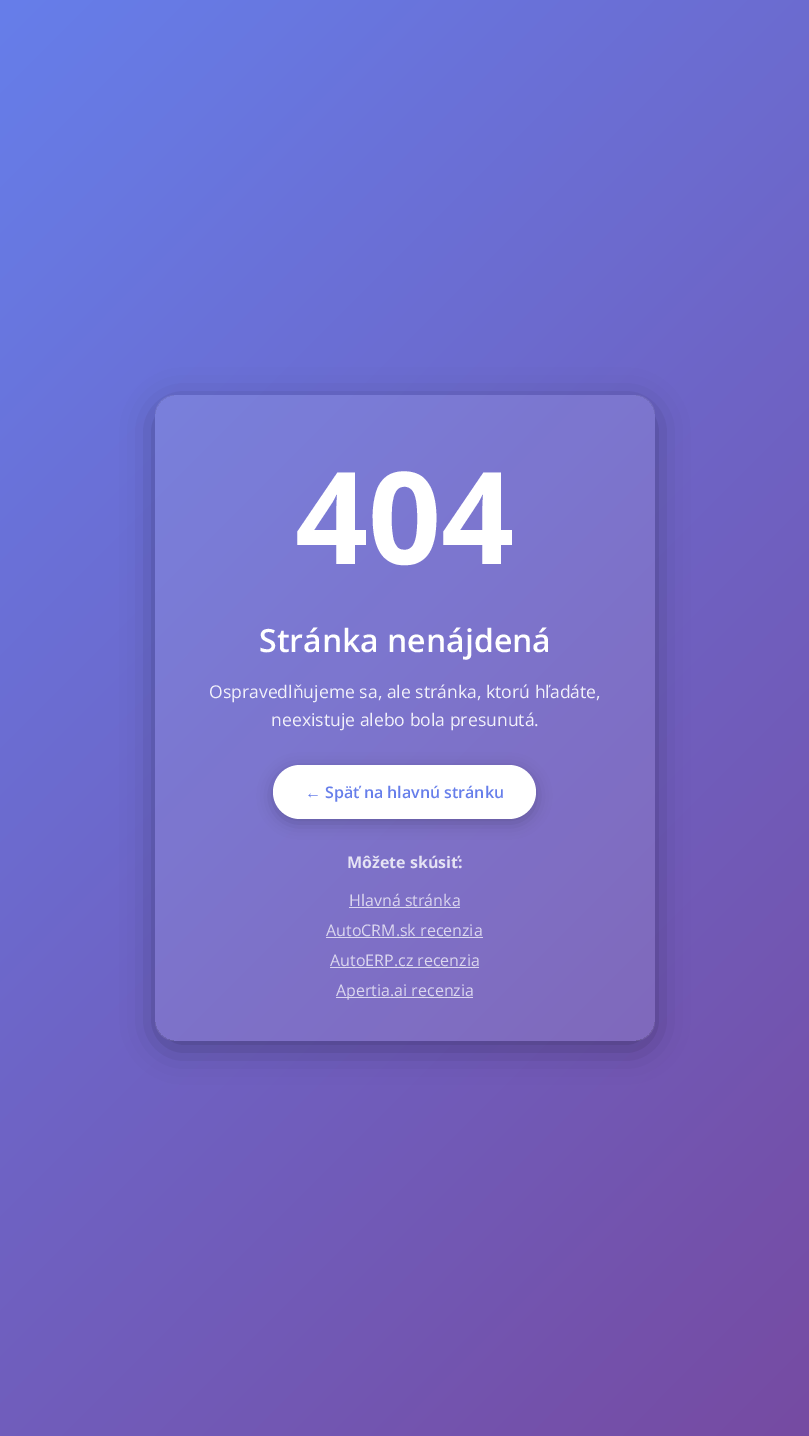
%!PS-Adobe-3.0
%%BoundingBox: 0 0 809 1436
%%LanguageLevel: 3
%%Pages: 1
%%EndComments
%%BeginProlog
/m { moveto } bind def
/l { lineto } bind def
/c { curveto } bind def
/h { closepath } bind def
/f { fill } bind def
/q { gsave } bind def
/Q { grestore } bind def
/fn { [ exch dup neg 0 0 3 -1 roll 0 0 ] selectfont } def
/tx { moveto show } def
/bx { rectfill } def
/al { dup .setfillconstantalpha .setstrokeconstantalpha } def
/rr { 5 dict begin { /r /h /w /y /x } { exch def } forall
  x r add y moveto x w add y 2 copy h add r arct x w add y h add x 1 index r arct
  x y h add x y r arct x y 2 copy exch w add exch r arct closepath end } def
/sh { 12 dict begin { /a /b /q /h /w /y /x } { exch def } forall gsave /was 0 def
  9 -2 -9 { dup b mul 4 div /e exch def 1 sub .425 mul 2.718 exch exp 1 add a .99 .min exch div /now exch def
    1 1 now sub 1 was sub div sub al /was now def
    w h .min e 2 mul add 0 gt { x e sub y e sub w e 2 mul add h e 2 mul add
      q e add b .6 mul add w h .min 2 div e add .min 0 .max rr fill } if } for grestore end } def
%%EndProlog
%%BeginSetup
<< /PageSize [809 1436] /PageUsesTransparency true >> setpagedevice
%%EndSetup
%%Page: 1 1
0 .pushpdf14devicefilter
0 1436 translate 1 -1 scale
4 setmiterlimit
1 setgray
0 0 809 1436 bx
q 0 0 m 809 0 l 809 1436 l 0 1436 l h clip newpath
<< /ShadingType 2 /ColorSpace /DeviceRGB /Coords [-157 157 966 1279] /Extend [true true] /Function << /FunctionType 2 /Domain [0 1] /C0 [0.4 0.494 0.918] /C1 [0.463 0.294 0.635] /N 1 >> >> shfill Q
q
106 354 m 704 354 l 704 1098 l 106 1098 l h 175 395 m 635 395 l 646 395 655 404 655 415 c 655 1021 l 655 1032 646 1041 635 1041 c 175 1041 l 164 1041 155 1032 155 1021 c 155 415 l 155 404 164 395 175 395 c h eoclip newpath
0 setgray
155 403 500 646 20 16 0.3 sh
Q
0.1 al
155 395 500 646 20 rr f
/OpenSans-Bold 128 fn
1 al
(404) 295 564 tx
/OpenSans-SemiBold 32 fn
(Stránka nenájdená) 259 652 tx
/OpenSans-Regular 17.6 fn
0.949 0.945 0.98 setrgbcolor
(Ospravedlňujeme sa, ale stránka, ktorú hľadáte,) 209 698 tx
(neexistuje alebo bola presunutá.) 271 726 tx
0 setgray
273 769 263 54 27 7.5 0.2 sh
1 setgray
273 765 263 54 27 rr f
/LiberationSans-Bold 16 fn
0.4 0.494 0.918 setrgbcolor
(←) 305 798 tx
/OpenSans-SemiBold 16 fn
(Späť na hlavnú stránku) 325 798 tx
/OpenSans-Bold 16 fn
0.898 0.89 0.957 setrgbcolor
(Môžete skúsiť:) 347 868 tx
/OpenSans-Regular 16 fn
0.859 0.843 0.937 setrgbcolor
(Hlavná stránka) 349 906 tx
0.72 al
1 setgray
349 907 111 1 bx
1 al
0.859 0.843 0.937 setrgbcolor
(AutoCRM.sk recenzia) 326 936 tx
0.72 al
1 setgray
326 937 157 1 bx
1 al
0.859 0.843 0.937 setrgbcolor
(AutoERP.cz recenzia) 330 966 tx
0.72 al
1 setgray
330 967 149 1 bx
336 997 137 1 bx
1 al
0.859 0.843 0.937 setrgbcolor
(Apertia.ai recenzia) 336 996 tx
.poppdf14devicefilter showpage
%%EOF
